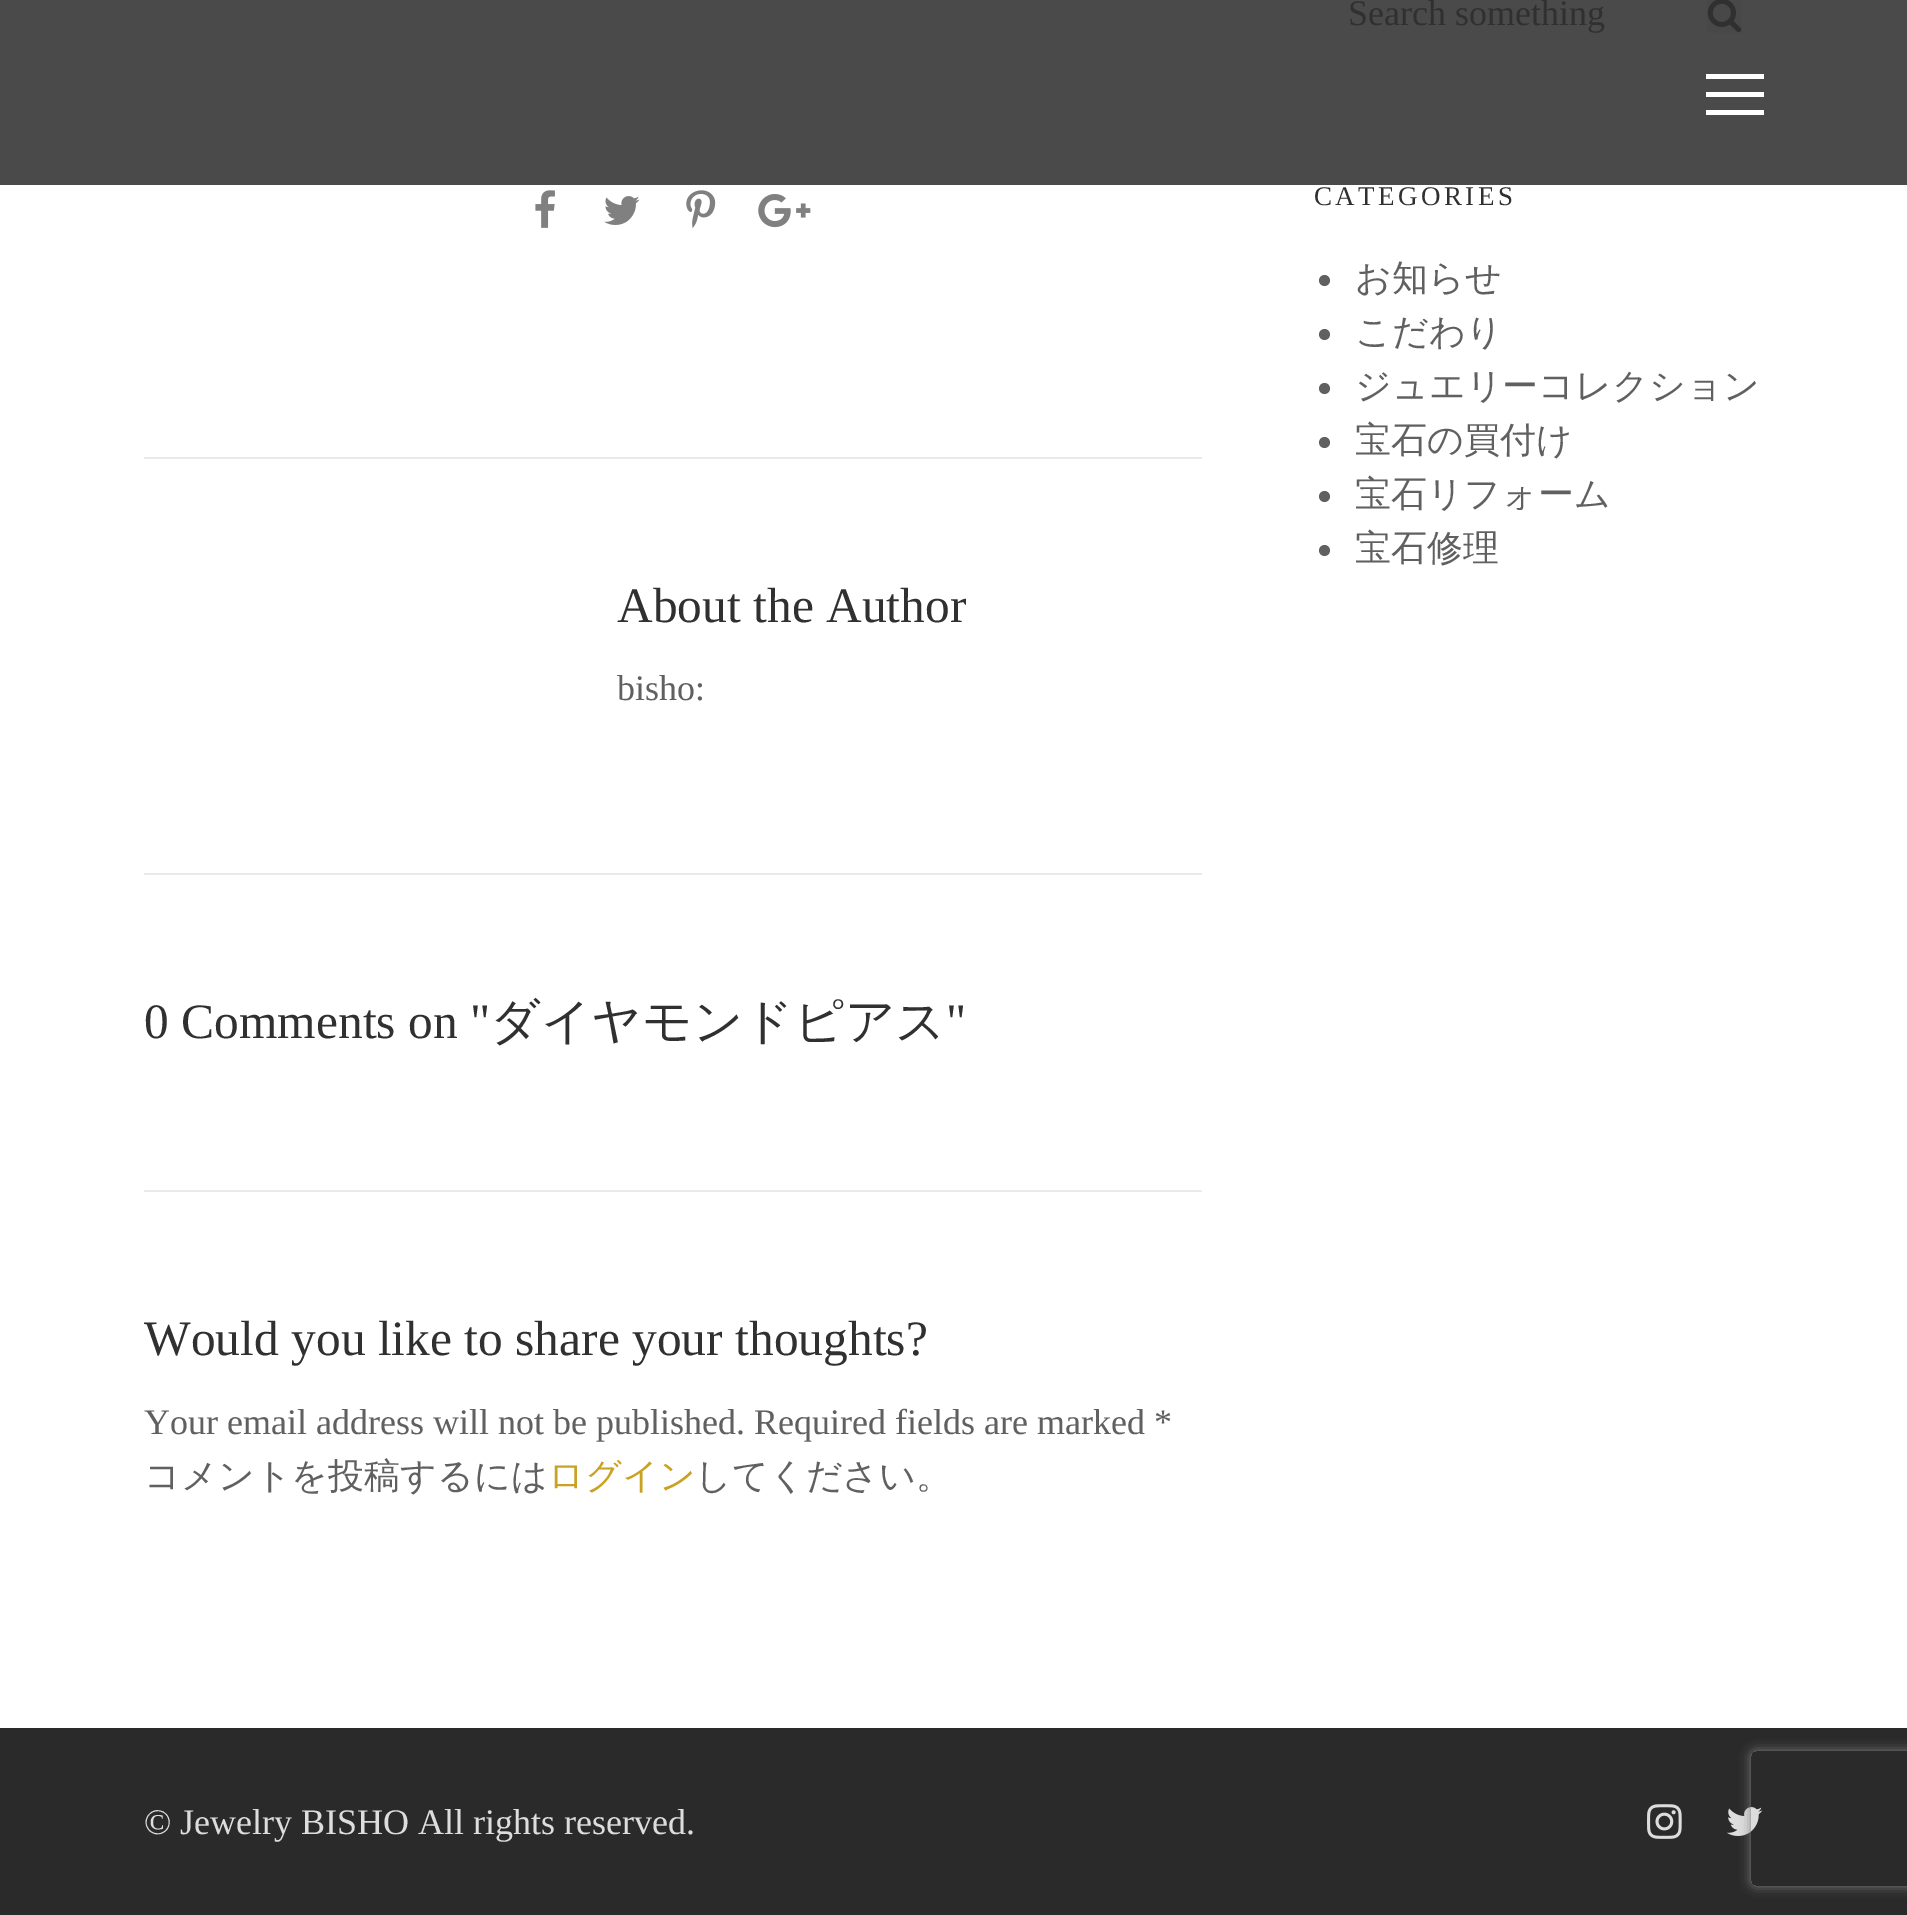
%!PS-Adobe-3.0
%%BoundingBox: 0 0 1907 1915
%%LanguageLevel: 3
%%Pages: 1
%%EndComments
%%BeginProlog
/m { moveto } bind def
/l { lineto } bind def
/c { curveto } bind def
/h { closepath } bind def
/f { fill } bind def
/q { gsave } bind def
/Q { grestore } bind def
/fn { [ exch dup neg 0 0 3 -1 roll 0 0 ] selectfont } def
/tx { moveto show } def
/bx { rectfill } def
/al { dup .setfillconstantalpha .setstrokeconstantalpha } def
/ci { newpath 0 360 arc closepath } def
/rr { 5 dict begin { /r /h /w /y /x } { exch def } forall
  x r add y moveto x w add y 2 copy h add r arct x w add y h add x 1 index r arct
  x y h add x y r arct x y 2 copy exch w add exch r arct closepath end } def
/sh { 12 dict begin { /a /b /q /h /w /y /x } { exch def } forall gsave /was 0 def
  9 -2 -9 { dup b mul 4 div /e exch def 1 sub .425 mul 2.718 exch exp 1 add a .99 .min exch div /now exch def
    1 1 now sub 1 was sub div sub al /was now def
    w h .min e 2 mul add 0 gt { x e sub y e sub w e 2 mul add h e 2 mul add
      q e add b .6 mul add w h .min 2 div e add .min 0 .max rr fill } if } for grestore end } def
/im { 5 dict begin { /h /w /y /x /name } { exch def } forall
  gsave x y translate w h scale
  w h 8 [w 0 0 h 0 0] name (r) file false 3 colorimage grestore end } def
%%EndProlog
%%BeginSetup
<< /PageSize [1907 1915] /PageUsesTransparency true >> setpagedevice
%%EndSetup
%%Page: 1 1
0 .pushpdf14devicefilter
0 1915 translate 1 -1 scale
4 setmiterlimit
1 setgray
0 0 1907 1915 bx
0.29 setgray
0 0 1907 185 bx
/LiberationSerif-Regular 36 fn
0.188 setgray
(Search something) 1348 25 tx
(image0.raw) 1707 0 35 33 im
/LiberationSerif-Regular 27 fn
1314 205 m 3.4 0 (CATEGORIES) ashow
0.376 setgray
1324.5 280.5 5.5 ci f
/WenQuanYiZenHei-Medium 36 fn
(お知らせ) 1355 290 tx
1324.5 334.5 5.5 ci f
(こだわり) 1355 344 tx
1324.5 388.5 5.5 ci f
(ジュエリーコレクション) 1355 398 tx
1324.5 442.5 5.5 ci f
(宝石の買付け) 1355 452 tx
1324.5 496.5 5.5 ci f
(宝石リフォーム) 1355 506 tx
1324.5 550.5 5.5 ci f
(宝石修理) 1355 560 tx
(image1.raw) 535 190 20 38 im
(image2.raw) 604 196 36 29 im
(image3.raw) 686 190 30 38 im
(image4.raw) 758 194 53 34 im
0.918 setgray
144 457 1058 2 bx
/LiberationSerif-Regular 49.5 fn
0.188 setgray
(About the Author) 617 622 tx
/LiberationSerif-Regular 36 fn
0.376 setgray
(bisho:) 617 700 tx
0.918 setgray
144 873 1058 2 bx
/LiberationSerif-Regular 49.5 fn
0.188 setgray
(0 Comments on ") 144 1038 tx
/WenQuanYiZenHei-Medium 49.5 fn
(ダイヤモンドピアス) 490 1038 tx
/LiberationSerif-Regular 49.5 fn
(") 946 1038 tx
0.918 setgray
144 1190 1058 2 bx
0.188 setgray
(Would you like to share your thoughts?) 144 1355 tx
/LiberationSerif-Regular 36 fn
0.376 setgray
(Your email address will not be published. Required fields are marked *) 144 1434 tx
/WenQuanYiZenHei-Medium 36 fn
(コメントを投稿するには) 144 1488 tx
0.788 0.635 0.133 setrgbcolor
(ログイン) 548 1488 tx
0.376 setgray
(してください。) 695 1488 tx
1 setgray
1706 92 58 5 bx
1706 74 58 5 bx
1706 110 58 5 bx
0.165 setgray
0 1728 1907 187 bx
/LiberationSerif-Regular 36 fn
0.867 setgray
(© Jewelry BISHO All rights reserved.) 144 1834 tx
(image5.raw) 1647 1804 35 35 im
(image6.raw) 1727 1807 36 29 im
q
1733 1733 m 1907 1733 l 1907 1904 l 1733 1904 l h 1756 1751 m 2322 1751 l 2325 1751 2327 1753 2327 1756 c 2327 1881 l 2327 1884 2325 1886 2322 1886 c 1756 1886 l 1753 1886 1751 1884 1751 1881 c 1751 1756 l 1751 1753 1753 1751 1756 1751 c h eoclip newpath
0.502 setgray
1751 1751 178 135 5 5.5 1 sh
Q
.poppdf14devicefilter showpage
%%EOF
